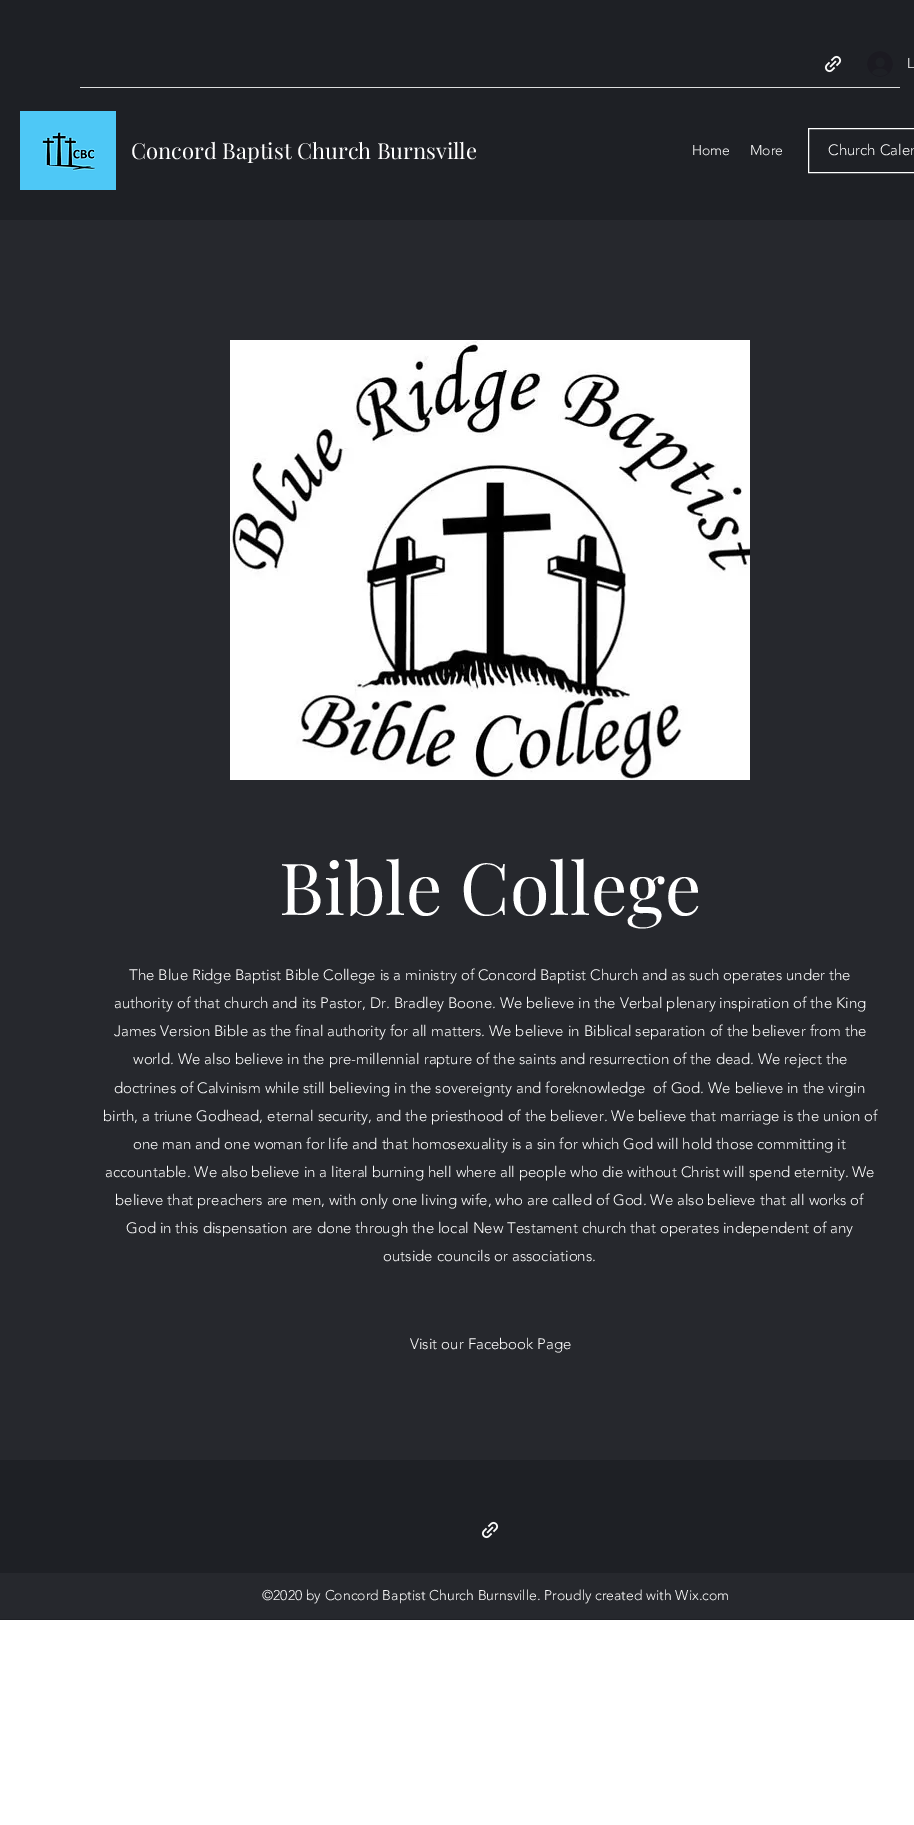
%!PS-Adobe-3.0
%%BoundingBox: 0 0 914 1825
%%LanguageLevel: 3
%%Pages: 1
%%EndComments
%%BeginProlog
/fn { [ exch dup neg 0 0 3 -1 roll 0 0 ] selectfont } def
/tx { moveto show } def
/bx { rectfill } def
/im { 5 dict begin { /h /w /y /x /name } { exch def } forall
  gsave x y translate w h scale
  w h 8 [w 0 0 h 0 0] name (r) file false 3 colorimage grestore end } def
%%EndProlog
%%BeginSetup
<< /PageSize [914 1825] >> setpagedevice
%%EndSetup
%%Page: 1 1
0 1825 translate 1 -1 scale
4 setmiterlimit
1 setgray
0 0 914 1825 bx
0.118 0.125 0.145 setrgbcolor
0 0 914 220 bx
(image0.raw) 824 55 18 18 im
(image1.raw) 867 51 26 26 im
/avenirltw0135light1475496-Light 14 fn
1 setgray
(L) 907 68 tx
0.867 0.871 0.871 setrgbcolor
80 87 820 1 bx
(image2.raw) 20 111 96 79 im
/PlayfairDisplay-Regular 22 fn
1 setgray
(Concord Baptist Church Burnsville) 131 159 tx
/avenirltw0135light1475496-Light 14 fn
(Home) 692 155 tx
(More) 750 155 tx
808.5 128.5 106 44 rectstroke
/avenirltw0135light1475496-Light 15 fn
(Church Calen) 828 155 tx
0.149 0.157 0.176 setrgbcolor
0 220 914 1240 bx
(image3.raw) 230 340 520 440 im
/PlayfairDisplay-Regular 72 fn
1 setgray
(Bible College) 279 915 tx
/avenirltw0135light1475496-Light 15 fn
(The Blue Ridge Baptist Bible College is a ministry of Concord Baptist Church and as such operates under the) 129 980 tx
(authority of that church and its Pastor, Dr. Bradley Boone. We believe in the Verbal plenary inspiration of the King) 114 1008 tx
(James Version Bible as the final authority for all matters. We believe in Biblical separation of the believer from the) 114 1036 tx
(world. We also believe in the pre-millennial rapture of the saints and resurrection of the dead. We reject the) 133 1064 tx
(doctrines of Calvinism while still believing in the sovereignty and foreknowledge  of God. We believe in the virgin) 114 1093 tx
(birth, a triune Godhead, eternal security, and the priesthood of the believer. We believe that marriage is the union of) 103 1121 tx
(one man and one woman for life and that homosexuality is a sin for which God will hold those committing it) 133 1149 tx
(accountable. We also believe in a literal burning hell where all people who die without Christ will spend eternity. We) 105 1177 tx
(believe that preachers are men, with only one living wife, who are called of God. We also believe that all works of) 115 1205 tx
(God in this dispensation are done through the local New Testament church that operates independent of any) 126 1233 tx
(outside councils or associations.) 383 1261 tx
(Visit our Facebook Page) 410 1349 tx
0.118 0.125 0.145 setrgbcolor
0 1460 914 160 bx
(image0.raw) 481 1521 18 18 im
0.149 0.157 0.176 setrgbcolor
0 1573 914 46 bx
/avenirltw0135light1475496-Light 14 fn
1 setgray
(©2020 by Concord Baptist Church Burnsville. Proudly created with Wix.com) 262 1600 tx
showpage
%%EOF
